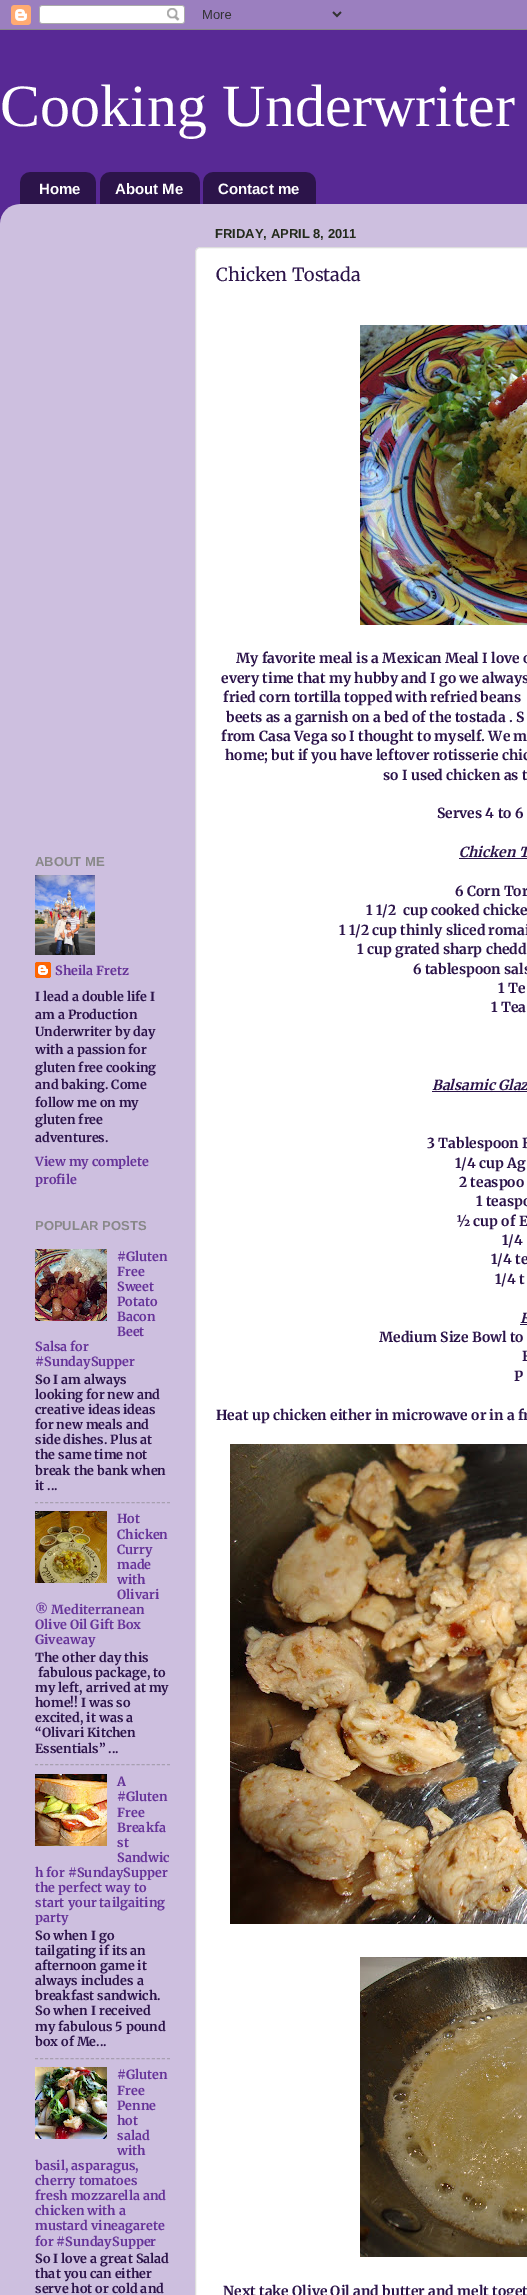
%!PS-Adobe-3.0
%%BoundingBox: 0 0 527 2295
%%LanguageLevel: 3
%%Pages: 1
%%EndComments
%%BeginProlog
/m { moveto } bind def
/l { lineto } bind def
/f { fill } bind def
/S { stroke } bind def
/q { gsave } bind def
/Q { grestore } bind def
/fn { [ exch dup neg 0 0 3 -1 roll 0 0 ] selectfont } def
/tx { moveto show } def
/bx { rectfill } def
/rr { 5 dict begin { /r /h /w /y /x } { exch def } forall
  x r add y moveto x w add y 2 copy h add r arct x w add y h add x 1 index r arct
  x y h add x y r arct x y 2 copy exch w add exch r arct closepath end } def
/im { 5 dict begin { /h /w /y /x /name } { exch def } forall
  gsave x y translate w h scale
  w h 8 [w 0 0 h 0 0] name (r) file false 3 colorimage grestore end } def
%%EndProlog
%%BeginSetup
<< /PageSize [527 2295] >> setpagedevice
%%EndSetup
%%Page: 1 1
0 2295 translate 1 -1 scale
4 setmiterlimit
0.345 0.161 0.584 setrgbcolor
0 0 527 2295 bx
(image0.raw) 0 0 527 30 im
/LiberationSerif-Regular 60 fn
1 setgray
(Cooking Underwriter) 0 126 tx
(image1.raw) 20 172 76 32 im
/LiberationSans-Bold 15 fn
(Home) 39 194 tx
(image2.raw) 100 172 100 32 im
(About Me) 115 194 tx
(image3.raw) 203 172 113 32 im
(Contact me) 218 194 tx
(image4.raw) 0 204 527 2091 im
/LiberationSans-Bold 13 fn
0.533 setgray
(ABOUT ME) 35 866 tx
(image5.raw) 35 875 60 80 im
(image6.raw) 35 962 16 16 im
/Merriweather-Bold 12.6 fn
0.4 0.2 0.6 setrgbcolor
(Sheila Fretz) 55 975 tx
0.173 0.078 0.29 setrgbcolor
(I lead a double life I) 35 1001 tx
(am a Production) 35 1019 tx
(Underwriter by day) 35 1036 tx
(with a passion for) 35 1054 tx
(gluten free cooking) 35 1072 tx
(and baking. Come) 35 1089 tx
(follow me on my) 35 1107 tx
(gluten free) 35 1124 tx
(adventures.) 35 1142 tx
0.4 0.2 0.6 setrgbcolor
(View my complete) 35 1166 tx
(profile) 35 1184 tx
/LiberationSans-Bold 13 fn
0.533 setgray
(POPULAR POSTS) 35 1230 tx
(image7.raw) 35 1249 72 72 im
/Merriweather-Bold 12.6 fn
0.4 0.2 0.6 setrgbcolor
(#Gluten) 117 1261 tx
(Free) 117 1276 tx
(Sweet) 117 1291 tx
(Potato) 117 1306 tx
(Bacon) 117 1321 tx
(Beet) 117 1336 tx
(Salsa for) 35 1351 tx
(#SundaySupper) 35 1366 tx
0.173 0.078 0.29 setrgbcolor
(So I am always) 35 1384 tx
(looking for new and) 35 1399 tx
(creative ideas ideas) 35 1414 tx
(for new meals and) 35 1429 tx
(side dishes. Plus at) 35 1444 tx
(the same time not) 35 1459 tx
(break the bank when) 35 1475 tx
(it ...) 35 1490 tx
0.655 0.627 0.69 setrgbcolor
[3 2.08] 0 setdash
35 1502.5 m 170 1502.5 l S
(image8.raw) 35 1511 72 72 im
0.4 0.2 0.6 setrgbcolor
(Hot) 117 1523 tx
(Chicken) 117 1539 tx
(Curry) 117 1554 tx
(made) 117 1569 tx
(with) 117 1584 tx
(Olivari) 117 1599 tx
(® Mediterranean) 35 1614 tx
(Olive Oil Gift Box) 35 1629 tx
(Giveaway) 35 1644 tx
0.173 0.078 0.29 setrgbcolor
(The other day this) 35 1662 tx
(fabulous package, to) 38 1677 tx
(my left, arrived at my) 35 1692 tx
(home!! I was so) 35 1707 tx
(excited, it was a) 35 1722 tx
(“Olivari Kitchen) 35 1737 tx
(Essentials” ...) 35 1753 tx
0.655 0.627 0.69 setrgbcolor
35 1764.5 m 170 1764.5 l S
(image9.raw) 35 1774 72 72 im
0.4 0.2 0.6 setrgbcolor
(A) 117 1786 tx
(#Gluten) 117 1801 tx
(Free) 117 1817 tx
(Breakfa) 117 1832 tx
(st) 117 1847 tx
(Sandwic) 117 1862 tx
(h for #SundaySupper) 35 1877 tx
(the perfect way to) 35 1892 tx
(start your tailgaiting) 35 1907 tx
(party) 35 1922 tx
0.173 0.078 0.29 setrgbcolor
(So when I go) 35 1940 tx
(tailgating if its an) 35 1955 tx
(afternoon game it) 35 1970 tx
(always includes a) 35 1985 tx
(breakfast sandwich.) 35 2000 tx
(So when I received) 35 2015 tx
(my fabulous 5 pound) 35 2031 tx
(box of Me...) 35 2046 tx
0.655 0.627 0.69 setrgbcolor
35 2058.5 m 170 2058.5 l S
(image10.raw) 35 2067 72 72 im
0.4 0.2 0.6 setrgbcolor
(#Gluten) 117 2079 tx
(Free) 117 2095 tx
(Penne) 117 2110 tx
(hot) 117 2125 tx
(salad) 117 2140 tx
(with) 117 2155 tx
(basil, asparagus,) 35 2170 tx
(cherry tomatoes) 35 2185 tx
(fresh mozzarella and) 35 2200 tx
(chicken with a) 35 2215 tx
(mustard vineagarete) 35 2230 tx
(for #SundaySupper) 35 2246 tx
0.173 0.078 0.29 setrgbcolor
(So I love a great Salad) 35 2263 tx
(that you can either) 35 2278 tx
(serve hot or cold and) 35 2293 tx
/LiberationSans-Bold 13 fn
0.133 0.165 0.102 setrgbcolor
(FRIDAY, APRIL 8, 2011) 215 238 tx
1 setgray
195.5 247.5 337 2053 4.5 rr q f Q
0.867 setgray
[] 0 setdash
S
/Merriweather-Regular 18 fn
0.173 0.078 0.29 setrgbcolor
(Chicken Tostada) 216 281 tx
(image11.raw) 360 325 167 300 im
/Merriweather-Bold 13.9 fn
(My favorite meal is a Mexican Meal I love o) 236 663 tx
(every time that my hubby and I go we always) 221 683 tx
(fried corn tortilla topped with refried beans) 223 702 tx
(beets as a garnish on a bed of the tostada . S) 226 722 tx
(from Casa Vega so I thought to myself. We m) 221 741 tx
(home; but if you have leftover rotisserie chic) 225 760 tx
(so I used chicken as t) 383 780 tx
(Serves 4 to 6) 437 818 tx
/Merriweather-BoldItalic 13.9 fn
(Chicken T) 459 857 tx
459 858 68 1 bx
/Merriweather-Bold 13.9 fn
(6 Corn Tor) 455 896 tx
(1 1/2  cup cooked chicke) 366 915 tx
(1 1/2 cup thinly sliced romai) 339 935 tx
(1 cup grated sharp chedd) 357 954 tx
(6 tablespoon sals) 413 974 tx
(1 Te) 498 993 tx
(1 Tea) 491 1012 tx
/Merriweather-BoldItalic 13.9 fn
(Balsamic Glaz) 432 1090 tx
432 1091 95 1 bx
/Merriweather-Bold 13.9 fn
(3 Tablespoon B) 427 1148 tx
(1/4 cup Ag) 455 1168 tx
(2 teaspoo) 459 1187 tx
(1 teaspo) 476 1206 tx
(½ cup of E) 457 1226 tx
(1/4) 502 1245 tx
(1/4 te) 491 1264 tx
(1/4 t) 495 1284 tx
/Merriweather-BoldItalic 13.9 fn
(E) 520 1323 tx
520 1324 7 1 bx
/Merriweather-Bold 13.9 fn
(Medium Size Bowl to) 379 1342 tx
(F) 522 1361 tx
(P) 514 1381 tx
(Heat up chicken either in microwave or in a fr) 216 1420 tx
(image12.raw) 230 1444 297 480 im
(image13.raw) 360 1957 167 300 im
(Next take Olive Oil and butter and melt toget) 223 2296 tx
showpage
%%EOF
